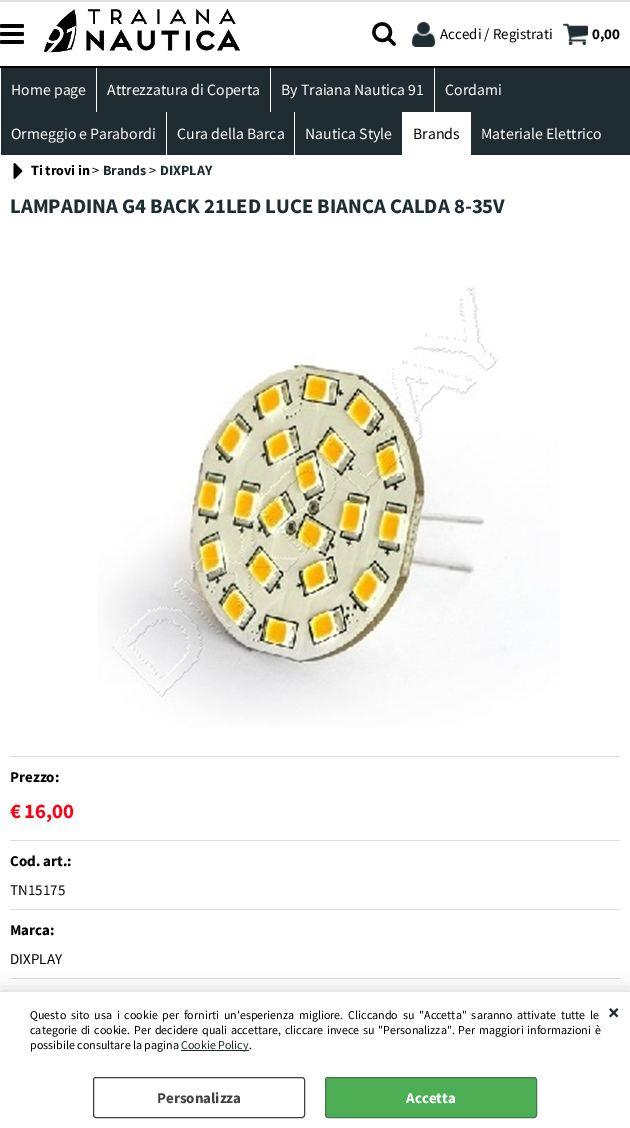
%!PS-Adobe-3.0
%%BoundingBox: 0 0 630 1128
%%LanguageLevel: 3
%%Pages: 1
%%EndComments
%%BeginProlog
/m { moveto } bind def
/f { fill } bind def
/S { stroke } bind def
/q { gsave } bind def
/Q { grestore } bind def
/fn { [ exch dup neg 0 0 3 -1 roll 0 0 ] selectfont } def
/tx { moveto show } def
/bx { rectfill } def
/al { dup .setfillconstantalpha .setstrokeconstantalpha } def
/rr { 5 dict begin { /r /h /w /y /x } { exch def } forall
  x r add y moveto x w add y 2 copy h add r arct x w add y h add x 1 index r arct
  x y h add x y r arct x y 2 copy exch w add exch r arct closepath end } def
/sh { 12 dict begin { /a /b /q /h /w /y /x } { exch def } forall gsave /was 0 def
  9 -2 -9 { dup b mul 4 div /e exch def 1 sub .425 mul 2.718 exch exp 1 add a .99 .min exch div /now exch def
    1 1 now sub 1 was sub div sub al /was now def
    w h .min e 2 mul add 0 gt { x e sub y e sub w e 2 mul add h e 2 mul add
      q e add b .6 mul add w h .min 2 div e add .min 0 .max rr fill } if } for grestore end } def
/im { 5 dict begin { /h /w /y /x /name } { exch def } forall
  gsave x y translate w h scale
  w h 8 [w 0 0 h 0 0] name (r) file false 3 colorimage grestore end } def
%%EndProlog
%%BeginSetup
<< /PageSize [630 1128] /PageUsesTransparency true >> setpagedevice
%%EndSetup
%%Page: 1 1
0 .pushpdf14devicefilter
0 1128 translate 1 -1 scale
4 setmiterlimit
0.122 0.173 0.196 setrgbcolor
0 0 630 1128 bx
1 setgray
0 2 630 64 bx
0.867 setgray
0 0 630 2 bx
0 setgray
0 66 630 2 bx
(image0.raw) 0 24 24 20 im
(image1.raw) 43 9 198 44 im
(image2.raw) 372 22 24 24 im
(image3.raw) 411 22 25 25 im
/SourceSansPro-Regular 15 fn
(Accedi / Registrati) 440 39 tx
(image4.raw) 563 23 25 23 im
/SourceSansPro-Bold 15 fn
(0,00) 592 39 tx
1 setgray
0 68 1 87 bx
/SourceSansPro-Regular 15.75 fn
(Home page) 11 95 tx
96 68 1 44 bx
(Attrezzatura di Coperta) 107 95 tx
270 68 1 44 bx
(By Traiana Nautica 91) 281 95 tx
434 68 1 44 bx
(Cordami) 445 95 tx
(Ormeggio e Parabordi) 11 139 tx
166 112 1 43 bx
(Cura della Barca) 177 139 tx
294 112 1 43 bx
(Nautica Style) 305 139 tx
402 112 69 43 bx
0 setgray
(Brands) 413 139 tx
1 setgray
(Materiale Elettrico) 481 139 tx
0 155 630 837 bx
(image5.raw) 13 163 10 16 im
/SourceSansPro-Bold 14 fn
0 setgray
(Ti trovi in) 31 175 tx
/SourceSansPro-Regular 14 fn
(>) 92 175 tx
/SourceSansPro-Bold 14 fn
0.122 0.173 0.196 setrgbcolor
(Brands) 103 175 tx
/SourceSansPro-Regular 14 fn
0 setgray
(>) 149 175 tx
/SourceSansPro-Bold 14 fn
0.122 0.173 0.196 setrgbcolor
(DIXPLAY) 160 175 tx
/SourceSansPro-Bold 20.75 fn
(LAMPADINA G4 BACK 21LED LUCE BIANCA CALDA 8-35V) 10 213 tx
(image6.raw) 98 287 462 441 im
0.867 setgray
10 756 610 1 bx
/SourceSansPro-Bold 15 fn
0 setgray
(Prezzo:) 10 782 tx
/SourceSansPro-Bold 20.75 fn
0.984 0.008 0.098 setrgbcolor
(€) 10 818 tx
(16,00) 24 818 tx
0.867 setgray
10 840 610 1 bx
/SourceSansPro-Bold 15 fn
0 setgray
(Cod. art.:) 10 866 tx
/SourceSansPro-Regular 15 fn
(TN15175) 10 895 tx
0.867 setgray
10 909 610 1 bx
/SourceSansPro-Bold 15 fn
0 setgray
(Marca:) 10 935 tx
/SourceSansPro-Regular 15 fn
(DIXPLAY) 10 964 tx
0.867 setgray
10 978 610 1 bx
0 setgray
0 992 630 136 0 9 0.2 sh
1 setgray
0 992 630 136 bx
/SourceSansPro-Regular 12 fn
0 setgray
30 1019 m 2.4 0 32 (Questo sito usa i cookie per fornirti un'esperienza migliore. Cliccando su "Accetta" saranno attivate tutte le) widthshow
30 1034 m 1.25 0 32 (categorie di cookie. Per decidere quali accettare, cliccare invece su "Personalizza". Per maggiori informazioni è) widthshow
(possibile consultare la pagina) 30 1049 tx
0.122 0.173 0.196 setrgbcolor
181 1050 68 1 bx
(Cookie Policy) 181 1049 tx
0 setgray
(.) 249 1049 tx
/SourceSansPro-Bold 22 fn
0.122 0.173 0.196 setrgbcolor
(×) 608 1020 tx
0.259 0.255 0.255 setrgbcolor
93.5 1077.5 211 40 2.5 rr S
/SourceSansPro-Bold 15 fn
(Personalizza) 157 1103 tx
0.306 0.682 0.329 setrgbcolor
325.5 1077.5 211 40 2.5 rr q f Q
0.247 0.467 0.333 setrgbcolor
S
1 setgray
(Accetta) 406 1103 tx
.poppdf14devicefilter showpage
%%EOF
